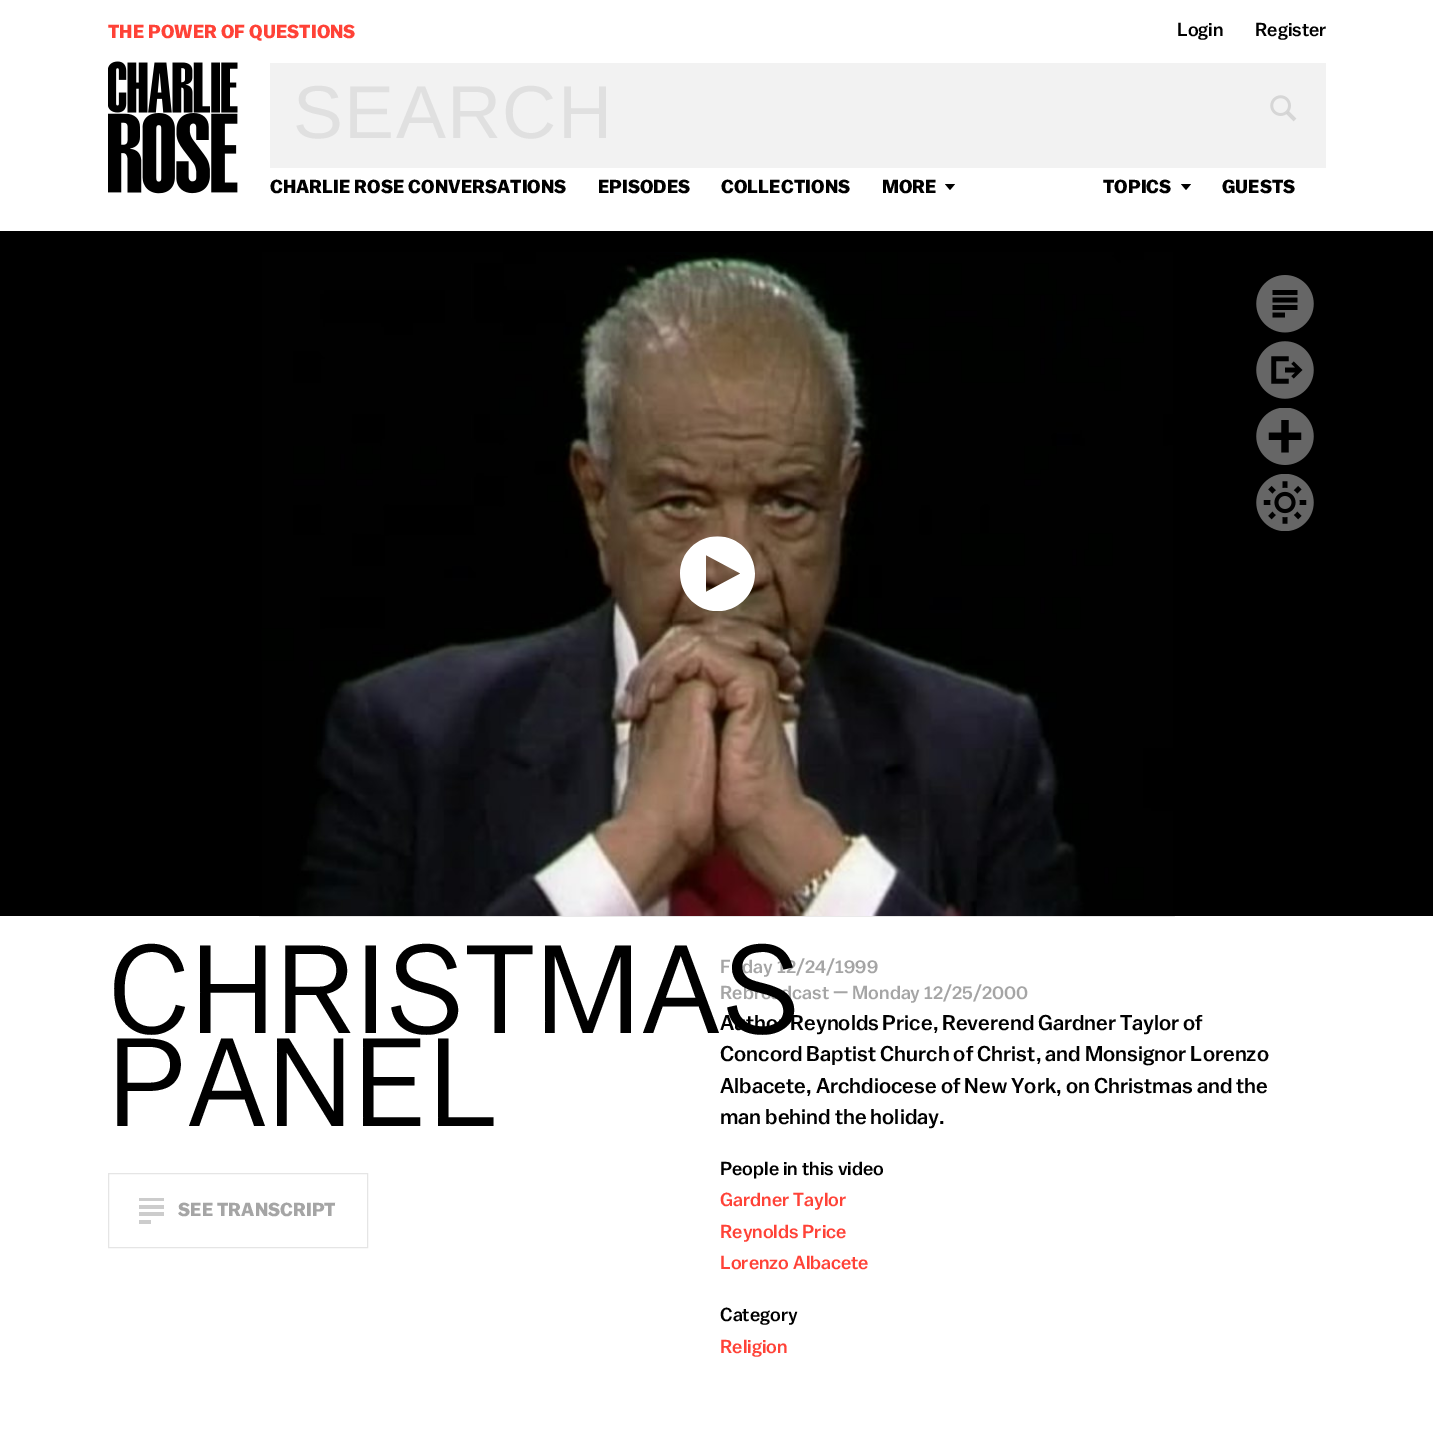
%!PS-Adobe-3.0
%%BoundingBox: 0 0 1433 1445
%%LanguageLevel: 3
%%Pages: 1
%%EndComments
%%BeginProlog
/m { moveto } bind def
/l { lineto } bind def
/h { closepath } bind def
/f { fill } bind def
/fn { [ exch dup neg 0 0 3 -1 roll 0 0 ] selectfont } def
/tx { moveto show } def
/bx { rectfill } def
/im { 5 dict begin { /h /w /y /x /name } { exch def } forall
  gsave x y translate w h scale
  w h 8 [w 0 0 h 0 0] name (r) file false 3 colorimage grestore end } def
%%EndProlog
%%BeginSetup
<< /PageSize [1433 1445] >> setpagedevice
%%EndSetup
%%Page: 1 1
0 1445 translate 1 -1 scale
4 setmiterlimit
1 setgray
0 0 1433 1445 bx
/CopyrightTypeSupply-SemiBold 18.75 fn
1 0.259 0.216 setrgbcolor
(THE POWER OF QUESTIONS) 108 38 tx
/CopyrightTypeSupply-Medium 18.75 fn
0 setgray
(Login) 1177 36 tx
(Register) 1255 36 tx
/CopyrightTypeSupply-SemiBold 18.75 fn
(CHARLIE ROSE CONVERSATIONS) 270 193 tx
(EPISODES) 598 193 tx
(COLLECTIONS) 721 193 tx
(MORE) 882 193 tx
945 184 m 955 184 l 950 190 l h f
(TOPICS) 1103 193 tx
1181 184 m 1191 184 l 1186 190 l h f
(GUESTS) 1222 193 tx
(image0.raw) 108 61 130 133 im
0.949 setgray
270 63 1056 105 bx
/LiberationSans-Regular 75 fn
0.878 setgray
293 138 m 1.25 0 (SEARCH) ashow
(image1.raw) 1270 95 27 27 im
0 setgray
0 231 1433 685 bx
(image2.raw) 259 252 916 665 im
(image3.raw) 1256 275 58 58 im
(image4.raw) 1256 341 58 58 im
(image5.raw) 1256 408 58 57 im
(image6.raw) 1256 474 58 57 im
/CopyrightTypeSupply-Medium 18.75 fn
0.647 setgray
(Friday 12/24/1999) 720 973 tx
(Rebroadcast — Monday 12/25/2000) 720 999 tx
/CopyrightTypeSupply-Medium 21.25 fn
0 setgray
720 1030 m -1 0 32 (Author Reynolds Price, Reverend Gardner Taylor of) widthshow
/CopyrightTypeSupply-Regular 125 fn
108 1033 m 1.25 0 (CHRISTMAS) ashow
108 1126 m 1.25 0 (PANEL) ashow
0.8 setgray
622 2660 m 648 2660 l 648 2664 l 622 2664 l h 622 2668 m 648 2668 l 648 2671 l 622 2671 l h 622 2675 m 648 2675 l 648 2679 l 622 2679 l h 622 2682 m 635 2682 l 635 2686 l 622 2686 l h 139 1198 m 164 1198 l 164 1201 l 139 1201 l h 139 1205 m 164 1205 l 164 1209 l 139 1209 l h 139 1212 m 164 1212 l 164 1216 l 139 1216 l h 139 1220 m 151 1220 l 151 1224 l 139 1224 l h f
0.898 setgray
108.5 1173.5 259 74 rectstroke
/CopyrightTypeSupply-SemiBold 18.75 fn
0.647 setgray
(SEE TRANSCRIPT) 178 1216 tx
/CopyrightTypeSupply-Medium 21.25 fn
0 setgray
720 1061 m -0.5 0 32 (Concord Baptist Church of Christ, and Monsignor Lorenzo) widthshow
720 1093 m -0.5 0 32 (Albacete, Archdiocese of New York, on Christmas and the) widthshow
720 1124 m -0.5 0 32 (man behind the holiday.) widthshow
/CopyrightTypeSupply-Medium 18.75 fn
(People in this video) 720 1175 tx
1 0.259 0.216 setrgbcolor
(Gardner Taylor) 720 1206 tx
(Reynolds Price) 720 1238 tx
(Lorenzo Albacete) 720 1269 tx
0 setgray
(Category) 720 1321 tx
1 0.259 0.216 setrgbcolor
(Religion) 720 1353 tx
showpage
%%EOF
